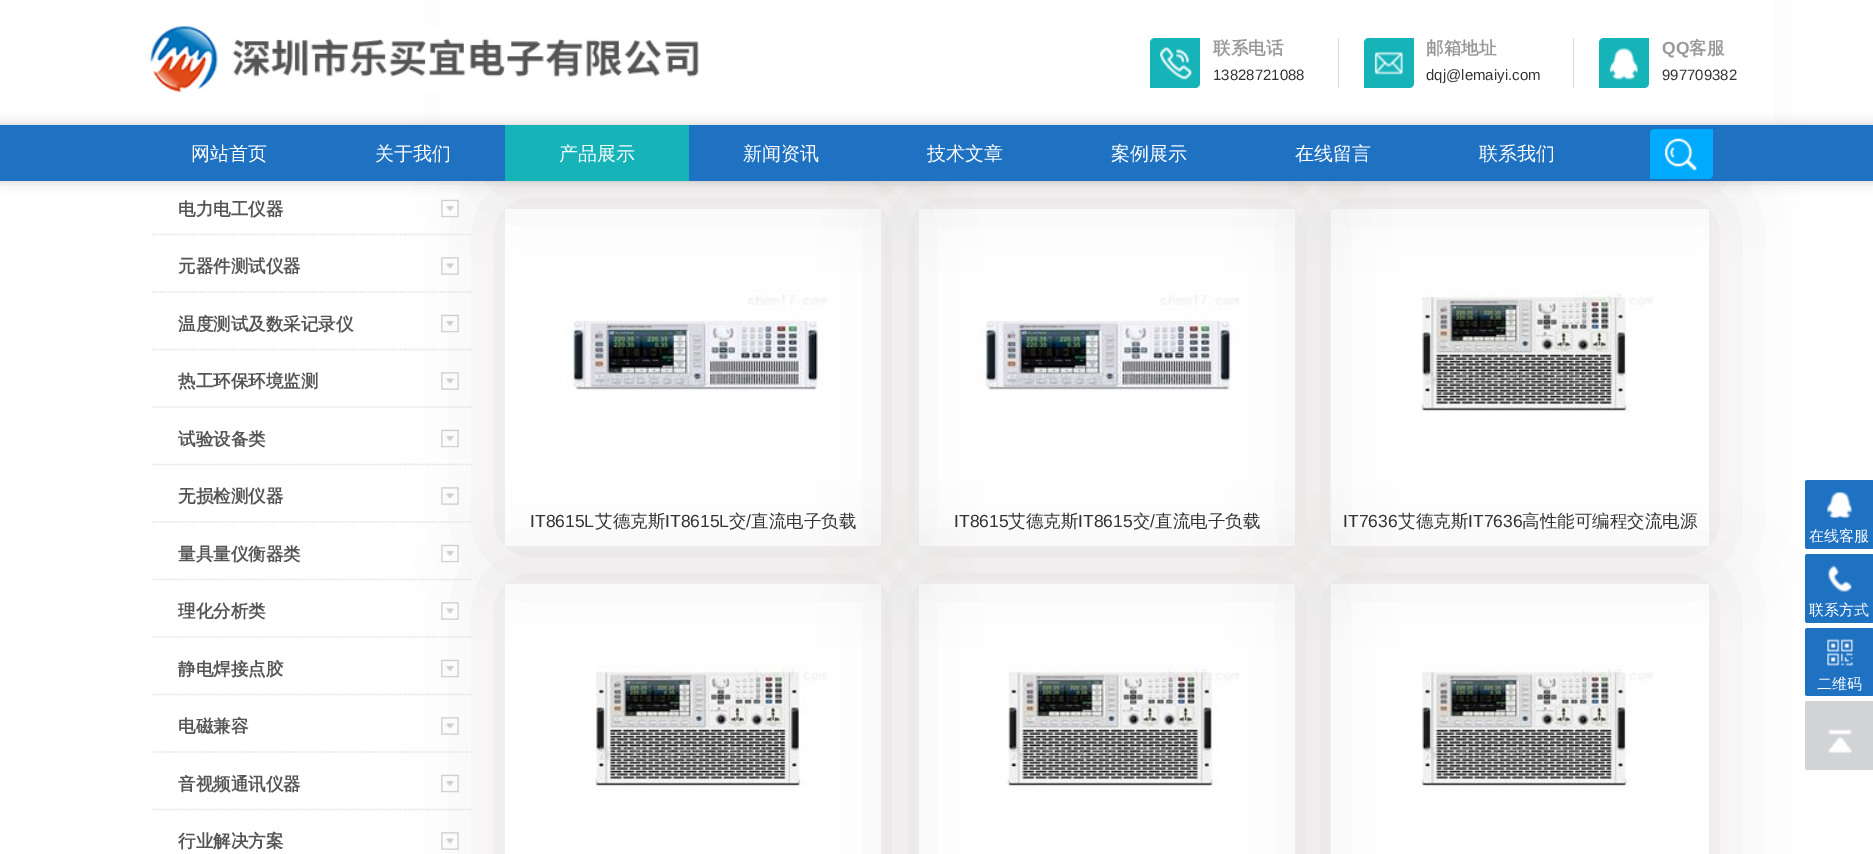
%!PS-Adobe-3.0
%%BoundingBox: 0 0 1873 854
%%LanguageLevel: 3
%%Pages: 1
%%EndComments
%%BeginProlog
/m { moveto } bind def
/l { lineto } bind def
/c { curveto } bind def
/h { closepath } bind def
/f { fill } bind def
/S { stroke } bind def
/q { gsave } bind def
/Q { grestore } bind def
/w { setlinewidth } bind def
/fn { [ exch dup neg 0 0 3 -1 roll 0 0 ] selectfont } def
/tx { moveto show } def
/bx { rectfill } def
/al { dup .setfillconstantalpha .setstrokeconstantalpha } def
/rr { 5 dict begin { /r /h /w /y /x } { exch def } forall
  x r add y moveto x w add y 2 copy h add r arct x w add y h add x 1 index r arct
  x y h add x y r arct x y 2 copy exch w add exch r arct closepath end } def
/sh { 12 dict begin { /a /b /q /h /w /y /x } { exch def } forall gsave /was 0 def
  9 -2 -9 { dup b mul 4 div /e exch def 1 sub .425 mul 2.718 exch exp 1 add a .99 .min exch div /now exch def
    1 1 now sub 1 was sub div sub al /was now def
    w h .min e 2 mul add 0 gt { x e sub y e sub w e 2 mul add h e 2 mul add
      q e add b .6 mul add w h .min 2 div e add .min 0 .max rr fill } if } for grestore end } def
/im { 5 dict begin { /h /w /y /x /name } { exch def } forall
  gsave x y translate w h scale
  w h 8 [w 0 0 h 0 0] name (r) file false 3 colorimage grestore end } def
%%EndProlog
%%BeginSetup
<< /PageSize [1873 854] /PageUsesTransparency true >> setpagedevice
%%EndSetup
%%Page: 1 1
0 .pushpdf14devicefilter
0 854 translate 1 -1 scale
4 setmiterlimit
1 setgray
0 0 1873 854 bx
0.882 0.867 0.867 setrgbcolor
505 -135 376 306 0 45 1 sh
919 -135 376 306 0 45 1 sh
1331 -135 378 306 0 45 1 sh
q
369 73 m 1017 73 l 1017 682 l 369 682 l h 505 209 m 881 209 l 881 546 l 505 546 l h eoclip newpath
505 209 376 337 0 45 1 sh
Q
q
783 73 m 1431 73 l 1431 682 l 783 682 l h 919 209 m 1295 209 l 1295 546 l 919 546 l h eoclip newpath
919 209 376 337 0 45 1 sh
Q
q
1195 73 m 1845 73 l 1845 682 l 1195 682 l h 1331 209 m 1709 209 l 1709 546 l 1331 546 l h eoclip newpath
1331 209 378 337 0 45 1 sh
Q
1 setgray
440 0 1334 125 bx
(image0.raw) 149 26 550 67 im
0.867 setgray
1338 38 1 50 bx
0.086 0.706 0.725 setrgbcolor
1155 38 m 1200 38 l 1200 83 l 1200 86 1198 88 1195 88 c 1150 88 l 1150 43 l 1150 40 1152 38 1155 38 c h f
(image1.raw) 1159 46 33 34 im
/WenQuanYiZenHei-Bold 17.5 fn
0.6 setgray
(联系电话) 1213 54 tx
/LiberationSans-Regular 15 fn
0.2 setgray
(13828721088) 1213 80 tx
0.867 setgray
1573 38 1 50 bx
0.086 0.706 0.725 setrgbcolor
1369 38 m 1414 38 l 1414 83 l 1414 86 1412 88 1409 88 c 1364 88 l 1364 43 l 1364 40 1366 38 1369 38 c h f
(image2.raw) 1374 51 29 24 im
/WenQuanYiZenHei-Bold 17.5 fn
0.6 setgray
(邮箱地址) 1426 54 tx
/LiberationSans-Regular 15 fn
0.2 setgray
(dqj@lemaiyi.com) 1426 80 tx
0.086 0.706 0.725 setrgbcolor
1604 38 m 1649 38 l 1649 83 l 1649 86 1647 88 1644 88 c 1599 88 l 1599 43 l 1599 40 1601 38 1604 38 c h f
(image3.raw) 1609 48 29 32 im
/LiberationSans-Bold 17.5 fn
0.6 setgray
(QQ) 1662 54 tx
/WenQuanYiZenHei-Bold 17.5 fn
(客服) 1689 54 tx
/LiberationSans-Regular 15 fn
0.2 setgray
(997709382) 1662 80 tx
(image5.raw) 441 199 18 19 im
0 setgray
0 125 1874 56 0 6 0.2 sh
0.122 0.443 0.761 setrgbcolor
0 125 1873 56 bx
/WenQuanYiZenHei-Medium 19 fn
1 setgray
(网站首页) 191 160 tx
(关于我们) 375 160 tx
0.086 0.706 0.725 setrgbcolor
505 125 184 56 bx
1 setgray
(产品展示) 559 160 tx
(新闻资讯) 743 160 tx
(技术文章) 927 160 tx
(案例展示) 1111 160 tx
(在线留言) 1295 160 tx
(联系我们) 1479 160 tx
0 0.671 0.992 setrgbcolor
1655 129 m 1713 129 l 1713 174 l 1713 177 1711 179 1708 179 c 1650 179 l 1650 134 l 1650 131 1652 129 1655 129 c h f
(image4.raw) 1664 138 33 33 im
0.871 setgray
1.2 w
[1.25 1.25] 0 setdash
152.5 234.5 m 472.5 234.5 l S
/WenQuanYiZenHei-Bold 17.5 fn
0.333 setgray
(电力电工仪器) 178 215 tx
0.871 setgray
152.5 292 m 472.5 292 l S
0.333 setgray
(元器件测试仪器) 178 272 tx
(image6.raw) 441 257 18 18 im
0.871 setgray
152.5 349.5 m 472.5 349.5 l S
0.333 setgray
(温度测试及数采记录仪) 178 330 tx
(image7.raw) 441 314 18 19 im
0.871 setgray
152.5 407 m 472.5 407 l S
0.333 setgray
(热工环保环境监测) 178 387 tx
(image8.raw) 441 372 18 18 im
q
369 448 m 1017 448 l 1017 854 l 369 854 l h 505 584 m 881 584 l 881 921 l 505 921 l h eoclip newpath
0.882 0.867 0.867 setrgbcolor
505 584 376 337 0 45 1 sh
Q
0.871 setgray
152.5 464.5 m 472.5 464.5 l S
0.333 setgray
(试验设备类) 178 445 tx
(image9.raw) 441 429 18 19 im
0.871 setgray
152.5 522 m 472.5 522 l S
0.333 setgray
(无损检测仪器) 178 502 tx
(image10.raw) 441 487 18 18 im
0.871 setgray
152.5 579.5 m 472.5 579.5 l S
0.333 setgray
(量具量仪衡器类) 178 560 tx
(image11.raw) 441 544 18 19 im
0.871 setgray
152.5 637 m 472.5 637 l S
0.333 setgray
(理化分析类) 178 617 tx
(image12.raw) 441 602 18 18 im
0.871 setgray
152.5 694.5 m 472.5 694.5 l S
0.333 setgray
(静电焊接点胶) 178 675 tx
(image13.raw) 441 659 18 19 im
0.871 setgray
152.5 752 m 472.5 752 l S
0.333 setgray
(电磁兼容) 178 732 tx
(image8.raw) 441 717 18 18 im
0.871 setgray
152.5 809.5 m 472.5 809.5 l S
0.333 setgray
(音视频通讯仪器) 178 790 tx
(image14.raw) 441 774 18 19 im
(行业解决方案) 178 847 tx
(image15.raw) 441 832 18 18 im
q
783 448 m 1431 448 l 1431 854 l 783 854 l h 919 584 m 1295 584 l 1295 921 l 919 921 l h eoclip newpath
0.882 0.867 0.867 setrgbcolor
919 584 376 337 0 45 1 sh
Q
(image16.raw) 594 665 233 122 im
q
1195 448 m 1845 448 l 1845 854 l 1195 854 l h 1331 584 m 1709 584 l 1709 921 l 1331 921 l h eoclip newpath
0.882 0.867 0.867 setrgbcolor
1331 584 378 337 0 45 1 sh
Q
(image17.raw) 1006 665 233 122 im
(image18.raw) 1420 665 233 122 im
(image19.raw) 566 290 261 100 im
/LiberationSans-Regular 17.5 fn
0.2 setgray
(IT8615L) 530 527 tx
/WenQuanYiZenHei-Medium 17.5 fn
(艾德克斯) 595 527 tx
/LiberationSans-Regular 17.5 fn
(IT8615L) 665 527 tx
/WenQuanYiZenHei-Medium 17.5 fn
(交) 729 527 tx
/LiberationSans-Regular 17.5 fn
(/) 746 527 tx
/WenQuanYiZenHei-Medium 17.5 fn
(直流电子负载) 751 527 tx
(image20.raw) 979 290 260 100 im
/LiberationSans-Regular 17.5 fn
(IT8615) 954 527 tx
/WenQuanYiZenHei-Medium 17.5 fn
(艾德克斯) 1008 527 tx
/LiberationSans-Regular 17.5 fn
(IT8615) 1078 527 tx
/WenQuanYiZenHei-Medium 17.5 fn
(交) 1133 527 tx
/LiberationSans-Regular 17.5 fn
(/) 1150 527 tx
/WenQuanYiZenHei-Medium 17.5 fn
(直流电子负载) 1155 527 tx
(image21.raw) 1420 290 233 122 im
/LiberationSans-Regular 17.5 fn
(IT7636) 1343 527 tx
/WenQuanYiZenHei-Medium 17.5 fn
(艾德克斯) 1398 527 tx
/LiberationSans-Regular 17.5 fn
(IT7636) 1468 527 tx
/WenQuanYiZenHei-Medium 17.5 fn
(高性能可编程交流电源) 1522 527 tx
0.122 0.443 0.761 setrgbcolor
1805 480 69 69 2.5 rr f
(image22.raw) 1827 492 26 26 im
/WenQuanYiZenHei-Medium 15 fn
1 setgray
(在线客服) 1809 541 tx
0.122 0.443 0.761 setrgbcolor
1805 554 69 69 2.5 rr f
(image23.raw) 1828 565 24 27 im
1 setgray
(联系方式) 1809 615 tx
0.122 0.443 0.761 setrgbcolor
1805 628 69 68 2.5 rr f
(image24.raw) 1827 639 27 27 im
1 setgray
(二维码) 1817 689 tx
0.824 0.827 0.839 setrgbcolor
1805 701 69 69 2.5 rr f
(image25.raw) 1828 729 24 24 im
.poppdf14devicefilter showpage
%%EOF
